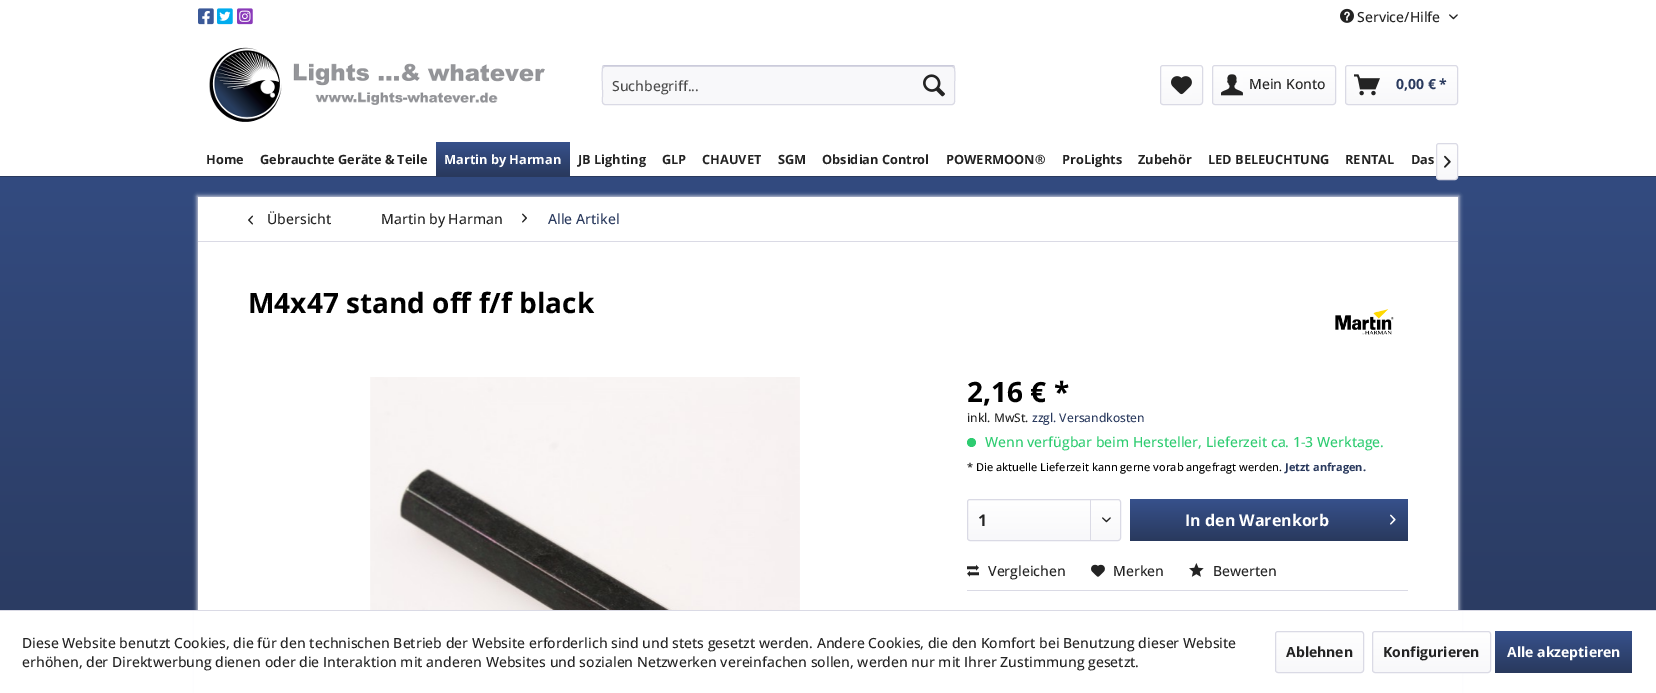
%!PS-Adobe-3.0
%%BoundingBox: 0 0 1656 693
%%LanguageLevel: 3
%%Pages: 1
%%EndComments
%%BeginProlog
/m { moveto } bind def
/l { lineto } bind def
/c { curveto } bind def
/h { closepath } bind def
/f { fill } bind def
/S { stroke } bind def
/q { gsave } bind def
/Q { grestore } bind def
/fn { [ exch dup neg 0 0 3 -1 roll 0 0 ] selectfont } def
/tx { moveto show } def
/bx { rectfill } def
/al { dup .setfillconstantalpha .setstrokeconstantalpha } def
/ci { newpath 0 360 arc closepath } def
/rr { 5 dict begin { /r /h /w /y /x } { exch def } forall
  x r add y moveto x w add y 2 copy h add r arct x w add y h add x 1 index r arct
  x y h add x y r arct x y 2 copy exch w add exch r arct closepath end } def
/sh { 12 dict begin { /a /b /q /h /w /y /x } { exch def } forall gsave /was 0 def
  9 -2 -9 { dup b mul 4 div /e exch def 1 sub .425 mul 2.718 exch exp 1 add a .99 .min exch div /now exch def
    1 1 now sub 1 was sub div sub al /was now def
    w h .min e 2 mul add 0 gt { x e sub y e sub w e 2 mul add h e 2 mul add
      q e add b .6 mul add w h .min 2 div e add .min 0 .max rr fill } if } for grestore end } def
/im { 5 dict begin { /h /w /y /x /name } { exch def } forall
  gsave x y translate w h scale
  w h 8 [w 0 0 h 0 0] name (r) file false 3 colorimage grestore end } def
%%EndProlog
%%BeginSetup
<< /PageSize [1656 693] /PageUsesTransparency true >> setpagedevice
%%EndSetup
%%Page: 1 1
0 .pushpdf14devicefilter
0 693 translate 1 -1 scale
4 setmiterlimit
1 setgray
0 0 1656 693 bx
q 0 177 m 1656 177 l 1656 610 l 0 610 l h clip newpath
<< /ShadingType 2 /ColorSpace /DeviceRGB /Coords [828 0 828 693] /Extend [true true] /Function << /FunctionType 2 /Domain [0 1] /C0 [0.216 0.318 0.549] /C1 [0.161 0.224 0.365] /N 1 >> >> shfill Q
(image0.raw) 198 8 16 17 im
(image1.raw) 217 8 16 17 im
(image2.raw) 237 8 16 17 im
(image3.raw) 1340 8 14 15 im
/OpenSans-Medium 14 fn
0.137 setgray
(Service/Hilfe) 1357 22 tx
(image4.raw) 1449 14 9 6 im
(image5.raw) 209 47 336 75 im
0.973 0.973 0.98 setrgbcolor
602 65 353 40 3 rr f
0.855 0.855 0.898 setrgbcolor
605 67 m 952 67 l 953 67 954 68 954 69 c 954 68 954 66 952 66 c 605 66 l 603 66 603 68 603 69 c 603 68 604 67 605 67 c h f
0.796 0.796 0.859 setrgbcolor
603 66 m 605 65.5 l 952 65.5 l 954 66 l S
0.855 0.855 0.898 setrgbcolor
954 66 m 955.5 68 954.5 87 954.5 90.5 c 954.5 96.5 l 954.5 98 956 104.5 952 104.5 c 605 104.5 l 601 104.5 602.5 98 602.5 96.5 c 602.5 90.5 l 602.5 87 601.5 68 603 66 c S
0.286 setgray
(Suchbegriff...) 612 91 tx
(image6.raw) 923 74 22 23 im
q 1161 66 41 38 2 rr clip newpath
<< /ShadingType 2 /ColorSpace /DeviceRGB /Coords [1182 66 1182 104] /Extend [true true] /Function << /FunctionType 2 /Domain [0 1] /C0 [1 1 1] /C1 [0.973 0.973 0.98] /N 1 >> >> shfill Q
0.855 0.855 0.898 setrgbcolor
1160.5 65.5 42 39 2.5 rr S
(image7.raw) 1171 76 21 19 im
q 1213 66 122 38 2 rr clip newpath
<< /ShadingType 2 /ColorSpace /DeviceRGB /Coords [1274 66 1274 104] /Extend [true true] /Function << /FunctionType 2 /Domain [0 1] /C0 [1 1 1] /C1 [0.973 0.973 0.98] /N 1 >> >> shfill Q
1212.5 65.5 123 39 2.5 rr S
(image8.raw) 1221 74 22 22 im
0.137 setgray
(Mein Konto) 1249 89 tx
q 1346 66 111 38 2 rr clip newpath
<< /ShadingType 2 /ColorSpace /DeviceRGB /Coords [1402 66 1402 104] /Extend [true true] /Function << /FunctionType 2 /Domain [0 1] /C0 [1 1 1] /C1 [0.973 0.973 0.98] /N 1 >> >> shfill Q
0.855 0.855 0.898 setrgbcolor
1345.5 65.5 112 39 2.5 rr S
(image9.raw) 1354 74 26 22 im
/OpenSans-Bold 14 fn
0.161 0.224 0.365 setrgbcolor
(0,00 € *) 1396 89 tx
0 176 1656 1 bx
/OpenSans-Bold 12.75 fn
0.137 setgray
(Home) 206 164 tx
(Gebrauchte Geräte & Teile) 260 164 tx
q 439 142 m 567 142 l 568.5 142 570 143.5 570 145 c 570 176 l 436 176 l 436 145 l 436 143.5 437.5 142 439 142 c h clip newpath
<< /ShadingType 2 /ColorSpace /DeviceRGB /Coords [503 142 503 176] /Extend [true true] /Function << /FunctionType 2 /Domain [0 1] /C0 [0.216 0.318 0.549] /C1 [0.161 0.224 0.365] /N 1 >> >> shfill Q
1 setgray
(Martin by Harman) 444 164 tx
0.137 setgray
(JB Lighting) 578 164 tx
(GLP) 662 164 tx
(CHAUVET) 702 164 tx
(SGM) 778 164 tx
(Obsidian Control) 822 164 tx
(POWERMOON®) 946 164 tx
(ProLights) 1062 164 tx
(Zubehör) 1138 164 tx
(LED BELEUCHTUNG) 1208 164 tx
(RENTAL) 1345 164 tx
(Das) 1411 164 tx
q 1437 144 20 35 2 rr clip newpath
<< /ShadingType 2 /ColorSpace /DeviceRGB /Coords [1447 144 1447 179] /Extend [true true] /Function << /FunctionType 2 /Domain [0 1] /C0 [1 1 1] /C1 [0.973 0.973 0.98] /N 1 >> >> shfill Q
0.855 0.855 0.898 setrgbcolor
1436.5 143.5 21 36 2.5 rr S
(image10.raw) 1444 155 7 13 im
197 196 1262 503 0 2 1 sh
1 setgray
198 197 1260 413 bx
0.855 0.855 0.898 setrgbcolor
198 241 1260 1 bx
(image11.raw) 248 215 5 10 im
/OpenSans-Medium 14 fn
0.137 setgray
(Übersicht) 267 224 tx
(Martin by Harman) 381 224 tx
(image12.raw) 522 213 5 10 im
0.161 0.224 0.365 setrgbcolor
(Alle Artikel) 548 224 tx
/OpenSans-Bold 28 fn
0 setgray
(M4x47 stand off f/f black) 248 313 tx
(image13.raw) 1335 309 59 26 im
(image14.raw) 370 377 430 233 im
(2,16 € *) 967 402 tx
/OpenSans-Medium 12 fn
0.137 setgray
(inkl. MwSt.) 967 422 tx
0.161 0.224 0.365 setrgbcolor
(zzgl. Versandkosten) 1032 422 tx
0.18 0.8 0.443 setrgbcolor
971.5 442.5 4.5 ci f
/OpenSans-Medium 14 fn
(Wenn verfügbar beim Hersteller, Lieferzeit ca. 1-3 Werktage.) 985 447 tx
/OpenSans-Medium 11 fn
0 setgray
(* Die aktuelle Lieferzeit kann gerne vorab angefragt werden.) 967 471 tx
/OpenSans-Bold 11 fn
0.161 0.224 0.365 setrgbcolor
(Jetzt anfragen.) 1285 471 tx
q 968 500 152 40 2 rr clip newpath
<< /ShadingType 2 /ColorSpace /DeviceRGB /Coords [1044 500 1044 540] /Extend [true true] /Function << /FunctionType 2 /Domain [0 1] /C0 [1 1 1] /C1 [0.973 0.973 0.98] /N 1 >> >> shfill Q
0.855 0.855 0.898 setrgbcolor
967.5 499.5 153 41 2.5 rr S
/OpenSans-Bold 16 fn
0.137 setgray
(1) 978 526 tx
0.855 0.855 0.898 setrgbcolor
1090 500 1 40 bx
(image15.raw) 1102 517 9 6 im
q 1130 499 278 42 3 rr clip newpath
<< /ShadingType 2 /ColorSpace /DeviceRGB /Coords [1269 499 1269 541] /Extend [true true] /Function << /FunctionType 2 /Domain [0 1] /C0 [0.216 0.318 0.549] /C1 [0.161 0.224 0.365] /N 1 >> >> shfill Q
1 setgray
(In den Warenkorb) 1185 526 tx
(image16.raw) 1390 514 6 11 im
0.855 0.855 0.898 setrgbcolor
967 590 441 1 bx
(image17.raw) 967 564 12 13 im
/OpenSans-Medium 14 fn
0.137 setgray
(Vergleichen) 988 576 tx
(image18.raw) 1091 564 14 13 im
(Merken) 1113 576 tx
(image19.raw) 1189 563 15 14 im
(Bewerten) 1213 576 tx
1 setgray
194 611 1268 82 bx
0.855 0.855 0.898 setrgbcolor
0 610 1656 1 bx
0.137 setgray
(Diese Website benutzt Cookies, die für den technischen Betrieb der Website erforderlich sind und stets gesetzt werden. Andere Cookies, die den Komfort bei Benutzung dieser Website) 22 648 tx
(erhöhen, der Direktwerbung dienen oder die Interaktion mit anderen Websites und sozialen Netzwerken vereinfachen sollen, werden nur mit Ihrer Zustimmung gesetzt.) 22 667 tx
q 1276 632 87 40 2 rr clip newpath
<< /ShadingType 2 /ColorSpace /DeviceRGB /Coords [1320 632 1320 672] /Extend [true true] /Function << /FunctionType 2 /Domain [0 1] /C0 [1 1 1] /C1 [0.973 0.973 0.98] /N 1 >> >> shfill Q
0.855 0.855 0.898 setrgbcolor
1275.5 631.5 88 41 2.5 rr S
/OpenSans-Bold 14 fn
0.137 setgray
(Ablehnen) 1286 657 tx
q 1373 632 117 40 2 rr clip newpath
<< /ShadingType 2 /ColorSpace /DeviceRGB /Coords [1432 632 1432 672] /Extend [true true] /Function << /FunctionType 2 /Domain [0 1] /C0 [1 1 1] /C1 [0.973 0.973 0.98] /N 1 >> >> shfill Q
0.855 0.855 0.898 setrgbcolor
1372.5 631.5 118 41 2.5 rr S
0.137 setgray
(Konfigurieren) 1383 657 tx
q 1495 631 137 42 3 rr clip newpath
<< /ShadingType 2 /ColorSpace /DeviceRGB /Coords [1564 631 1564 673] /Extend [true true] /Function << /FunctionType 2 /Domain [0 1] /C0 [0.216 0.318 0.549] /C1 [0.161 0.224 0.365] /N 1 >> >> shfill Q
1 setgray
(Alle akzeptieren) 1507 657 tx
.poppdf14devicefilter showpage
%%EOF
